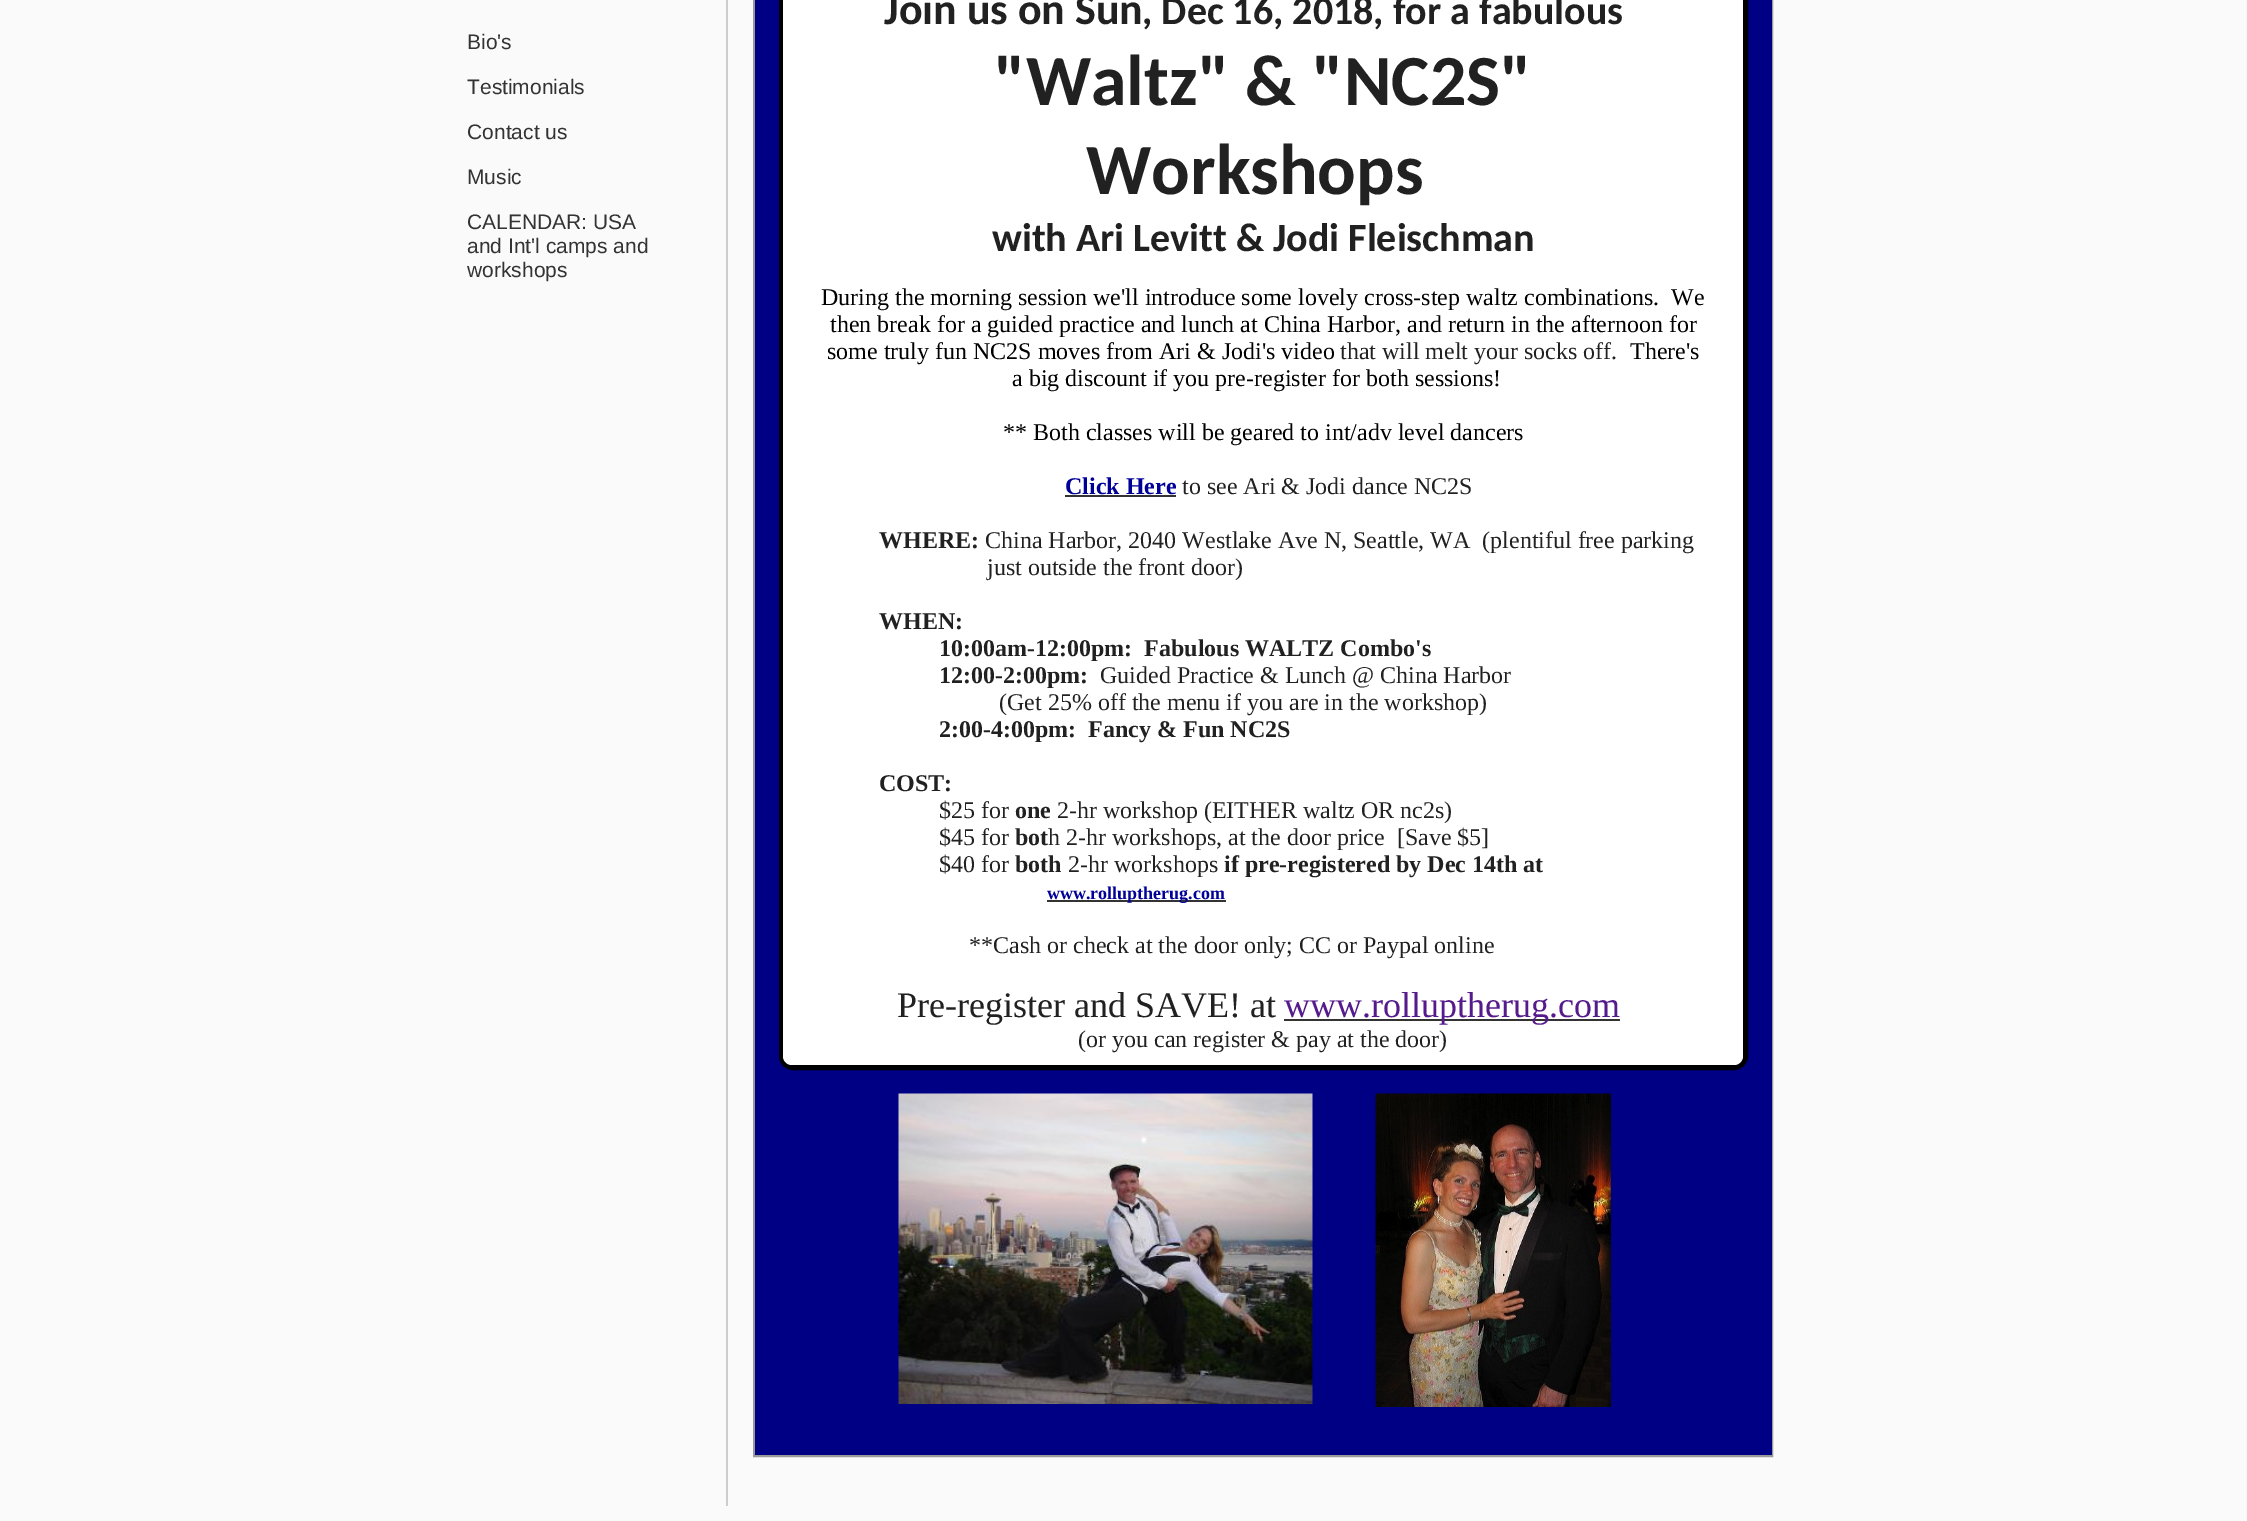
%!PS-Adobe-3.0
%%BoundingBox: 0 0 2247 1521
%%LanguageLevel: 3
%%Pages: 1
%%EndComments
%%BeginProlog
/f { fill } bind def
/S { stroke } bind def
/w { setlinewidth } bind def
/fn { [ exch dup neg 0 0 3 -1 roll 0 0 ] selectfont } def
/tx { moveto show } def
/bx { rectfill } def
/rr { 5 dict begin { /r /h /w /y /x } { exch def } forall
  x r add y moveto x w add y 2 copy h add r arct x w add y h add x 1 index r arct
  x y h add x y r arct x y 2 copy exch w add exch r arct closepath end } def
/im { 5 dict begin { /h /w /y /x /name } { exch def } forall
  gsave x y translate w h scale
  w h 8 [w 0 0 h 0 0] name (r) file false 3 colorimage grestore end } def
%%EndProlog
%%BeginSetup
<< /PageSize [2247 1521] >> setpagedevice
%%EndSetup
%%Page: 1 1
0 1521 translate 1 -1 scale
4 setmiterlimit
0.98 setgray
0 0 2247 1521 bx
/LiberationSans-Regular 21 fn
0.2 setgray
(Bio's) 467 49 tx
(Testimonials) 467 94 tx
(Contact us) 467 139 tx
(Music) 467 184 tx
(CALENDAR: USA) 467 229 tx
(and Int'l camps and) 467 253 tx
(workshops) 467 277 tx
0.8 setgray
726 0 2 1506 bx
0.6 setgray
2 w
754 -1 1018 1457 rectstroke
0 0 0.522 setrgbcolor
755 0 1017 1455 bx
0 setgray
5 w
781.5 -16.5 964 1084 11.5 rr S
1 setgray
783 -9 960 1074 9 rr f
/Carlito-Bold 44 fn
0.129 setgray
(Join us on Sun) 884 24 tx
/Carlito-Bold 40 fn
(, Dec 16, 2018, for a fabulous) 1142 24 tx
/Carlito-Bold 72 fn
("Waltz" & "NC2S") 994 105 tx
(Workshops) 1086 194 tx
/Carlito-Bold 40 fn
(with Ari Levitt & Jodi Fleischman) 992 251 tx
/LiberationSerif-Regular 24 fn
0 setgray
(During the morning session we'll introduce some lovely cross-step waltz combinations.  We) 821 305 tx
(then break for a guided practice and lunch at China Harbor, and return in the afternoon for) 830 332 tx
(some truly fun NC2S moves from Ari & Jodi's video) 827 359 tx
0.129 setgray
(that will melt your socks off.) 1340 359 tx
0 setgray
(There's) 1630 359 tx
(a big discount if you pre-register for both sessions!) 1012 386 tx
(** Both classes will be geared to int/adv level dancers) 1003 440 tx
/LiberationSerif-Bold 24 fn
0 0 0.6 setrgbcolor
(Click Here) 1065 494 tx
0.2 setgray
1065 495 111 2 bx
/LiberationSerif-Regular 24 fn
0.129 setgray
(to see Ari & Jodi dance NC2S) 1182 494 tx
/LiberationSerif-Bold 24 fn
(WHERE:) 879 548 tx
/LiberationSerif-Regular 24 fn
(China Harbor, 2040 Westlake Ave N, Seattle, WA  \(plentiful free parking) 985 548 tx
(just outside the front door\)) 987 575 tx
/LiberationSerif-Bold 24 fn
(WHEN:) 879 629 tx
(10:00am-12:00pm:  Fabulous WALTZ Combo's) 939 656 tx
(12:00-2:00pm:) 939 683 tx
/LiberationSerif-Regular 24 fn
(Guided Practice & Lunch @ China Harbor) 1100 683 tx
(\(Get 25% off the menu if you are in the workshop\)) 999 710 tx
/LiberationSerif-Bold 24 fn
(2:00-4:00pm:  Fancy & Fun NC2S) 939 737 tx
(COST:) 879 791 tx
/LiberationSerif-Regular 24 fn
($25 for) 939 818 tx
/LiberationSerif-Bold 24 fn
(one) 1015 818 tx
/LiberationSerif-Regular 24 fn
(2-hr workshop \(EITHER waltz OR nc2s\)) 1057 818 tx
($45 for) 939 845 tx
/LiberationSerif-Bold 24 fn
(bot) 1015 845 tx
/LiberationSerif-Regular 24 fn
(h 2-hr workshops, at the door price  [Save $5]) 1048 845 tx
($40 for) 939 872 tx
/LiberationSerif-Bold 24 fn
(both) 1015 872 tx
/LiberationSerif-Regular 24 fn
(2-hr workshops) 1068 872 tx
/LiberationSerif-Bold 24 fn
(if pre-registered by Dec 14th at) 1224 872 tx
0.2 setgray
1047 900 179 2 bx
/LiberationSerif-Bold 18 fn
0 0 0.6 setrgbcolor
(www.rolluptherug.com) 1047 899 tx
/LiberationSerif-Regular 24 fn
0.129 setgray
(**Cash or check at the door only; CC or Paypal online) 969 953 tx
/LiberationSerif-Regular 36 fn
(Pre-register and SAVE! at) 897 1017 tx
0.2 setgray
1284 1019 336 2 bx
0.333 0.102 0.545 setrgbcolor
(www.rolluptherug.com) 1284 1017 tx
/LiberationSerif-Regular 24 fn
0.129 setgray
(\(or you can register & pay at the door\)) 1078 1047 tx
(image0.raw) 898 1093 415 311 im
(image1.raw) 1375 1093 236 314 im
showpage
%%EOF
